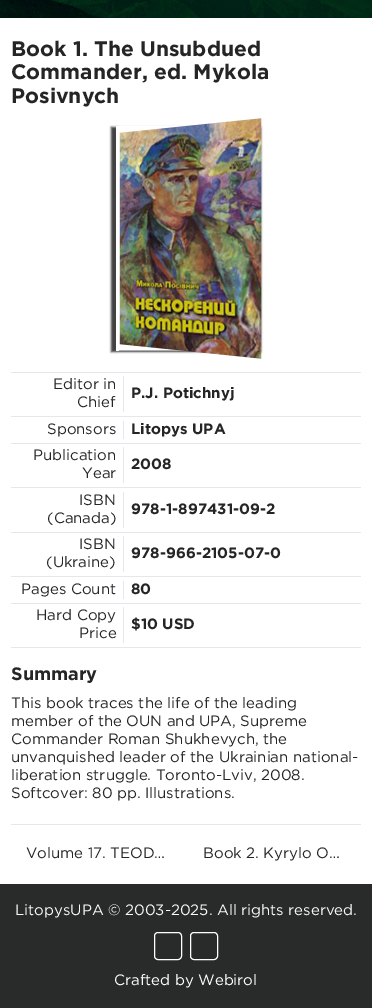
%!PS-Adobe-3.0
%%BoundingBox: 0 0 372 1008
%%LanguageLevel: 3
%%Pages: 1
%%EndComments
%%BeginProlog
/m { moveto } bind def
/l { lineto } bind def
/h { closepath } bind def
/S { stroke } bind def
/q { gsave } bind def
/Q { grestore } bind def
/fn { [ exch dup neg 0 0 3 -1 roll 0 0 ] selectfont } def
/tx { moveto show } def
/bx { rectfill } def
/al { dup .setfillconstantalpha .setstrokeconstantalpha } def
/rr { 5 dict begin { /r /h /w /y /x } { exch def } forall
  x r add y moveto x w add y 2 copy h add r arct x w add y h add x 1 index r arct
  x y h add x y r arct x y 2 copy exch w add exch r arct closepath end } def
/sh { 12 dict begin { /a /b /q /h /w /y /x } { exch def } forall gsave /was 0 def
  9 -2 -9 { dup b mul 4 div /e exch def 1 sub .425 mul 2.718 exch exp 1 add a .99 .min exch div /now exch def
    1 1 now sub 1 was sub div sub al /was now def
    w h .min e 2 mul add 0 gt { x e sub y e sub w e 2 mul add h e 2 mul add
      q e add b .6 mul add w h .min 2 div e add .min 0 .max rr fill } if } for grestore end } def
/im { 5 dict begin { /h /w /y /x /name } { exch def } forall
  gsave x y translate w h scale
  w h 8 [w 0 0 h 0 0] name (r) file false 3 colorimage grestore end } def
%%EndProlog
%%BeginSetup
<< /PageSize [372 1008] /PageUsesTransparency true >> setpagedevice
%%EndSetup
%%Page: 1 1
0 .pushpdf14devicefilter
0 1008 translate 1 -1 scale
4 setmiterlimit
1 setgray
0 0 372 1008 bx
(image0.raw) 0 0 372 18 im
/Gotham-Bold 21 fn
0.145 setgray
(Book 1. The Unsubdued) 11 56 tx
(Commander, ed. Mykola) 11 79 tx
(Posivnych) 11 103 tx
q
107 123 m 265 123 l 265 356 l 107 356 l h 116 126 m 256 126 l 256 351 l 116 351 l h eoclip newpath
0 setgray
111 127 150 225 0 1 0.75 sh
Q
(image1.raw) 119 118 143 241 im
0.894 0.906 0.922 setrgbcolor
11 372 350 1 bx
11 416 350 1 bx
123 376 1 36 bx
/Gotham-Regular 15 fn
0.145 setgray
(Editor in) 53 389 tx
(Chief) 77 407 tx
/Gotham-Bold 15 fn
(P.J. Potichnyj) 131 398 tx
0.894 0.906 0.922 setrgbcolor
11 443 350 1 bx
123 421 1 18 bx
/Gotham-Regular 15 fn
0.145 setgray
(Sponsors) 47 434 tx
/Gotham-Bold 15 fn
(Litopys UPA) 131 434 tx
0.894 0.906 0.922 setrgbcolor
11 487 350 1 bx
123 447 1 36 bx
/Gotham-Regular 15 fn
0.145 setgray
(Publication) 33 460 tx
(Year) 82 478 tx
/Gotham-Bold 15 fn
(2008) 131 469 tx
0.894 0.906 0.922 setrgbcolor
11 532 350 1 bx
123 492 1 36 bx
/Gotham-Regular 15 fn
0.145 setgray
(ISBN) 79 505 tx
(\(Canada\)) 47 523 tx
/Gotham-Bold 15 fn
(978-1-897431-09-2) 131 514 tx
0.894 0.906 0.922 setrgbcolor
11 576 350 1 bx
123 536 1 36 bx
/Gotham-Regular 15 fn
0.145 setgray
(ISBN) 79 549 tx
(\(Ukraine\)) 46 567 tx
/Gotham-Bold 15 fn
(978-966-2105-07-0) 131 558 tx
0.894 0.906 0.922 setrgbcolor
11 603 350 1 bx
123 581 1 18 bx
/Gotham-Regular 15 fn
0.145 setgray
(Pages Count) 21 594 tx
/Gotham-Bold 15 fn
(80) 131 594 tx
0.894 0.906 0.922 setrgbcolor
11 647 350 1 bx
123 607 1 36 bx
/Gotham-Regular 15 fn
0.145 setgray
(Hard Copy) 36 620 tx
(Price) 79 638 tx
/Gotham-Bold 15 fn
($10 USD) 131 629 tx
/Gotham-Bold 18 fn
(Summary) 11 680 tx
/Gotham-Regular 15 fn
(This book traces the life of the leading) 11 708 tx
(member of the OUN and UPA, Supreme) 11 726 tx
(Commander Roman Shukhevych, the) 11 744 tx
(unvanquished leader of the Ukrainian national-) 11 762 tx
(liberation struggle. Toronto-Lviv, 2008.) 11 780 tx
(Softcover: 80 pp. Illustrations.) 11 798 tx
0.894 0.906 0.922 setrgbcolor
11 824 350 1 bx
0.145 setgray
(Volume 17. TEOD…) 26 858 tx
(Book 2. Kyrylo O…) 203 858 tx
0.157 0.169 0.161 setrgbcolor
0 884 372 124 bx
0.973 setgray
(LitopysUPA © 2003-2025. All rights reserved.) 15 915 tx
1 setgray
154.5 932.5 27 27 3.5 rr S
190.5 932.5 27 27 3.5 rr S
(Crafted by Webirol) 114 985 tx
.poppdf14devicefilter showpage
%%EOF
